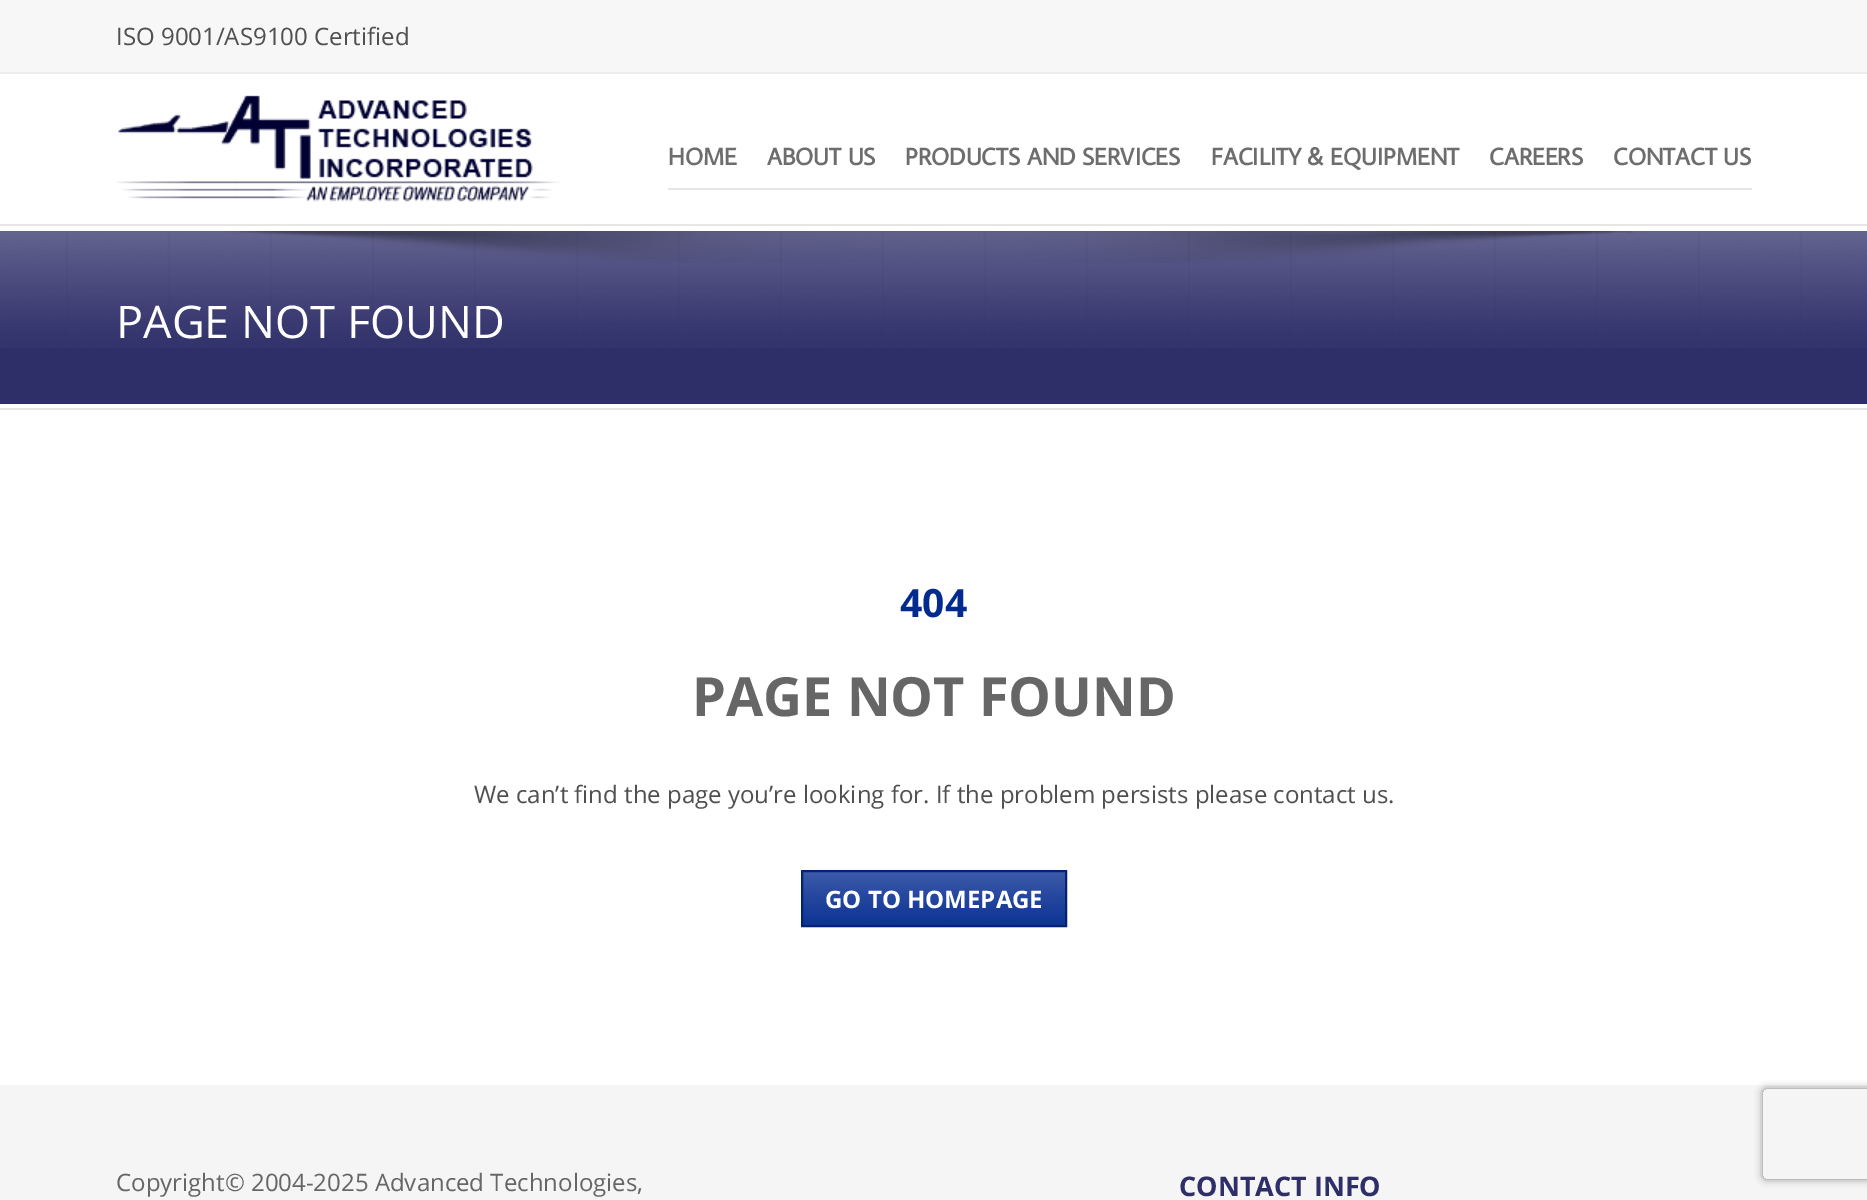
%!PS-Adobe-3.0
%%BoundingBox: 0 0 1867 1200
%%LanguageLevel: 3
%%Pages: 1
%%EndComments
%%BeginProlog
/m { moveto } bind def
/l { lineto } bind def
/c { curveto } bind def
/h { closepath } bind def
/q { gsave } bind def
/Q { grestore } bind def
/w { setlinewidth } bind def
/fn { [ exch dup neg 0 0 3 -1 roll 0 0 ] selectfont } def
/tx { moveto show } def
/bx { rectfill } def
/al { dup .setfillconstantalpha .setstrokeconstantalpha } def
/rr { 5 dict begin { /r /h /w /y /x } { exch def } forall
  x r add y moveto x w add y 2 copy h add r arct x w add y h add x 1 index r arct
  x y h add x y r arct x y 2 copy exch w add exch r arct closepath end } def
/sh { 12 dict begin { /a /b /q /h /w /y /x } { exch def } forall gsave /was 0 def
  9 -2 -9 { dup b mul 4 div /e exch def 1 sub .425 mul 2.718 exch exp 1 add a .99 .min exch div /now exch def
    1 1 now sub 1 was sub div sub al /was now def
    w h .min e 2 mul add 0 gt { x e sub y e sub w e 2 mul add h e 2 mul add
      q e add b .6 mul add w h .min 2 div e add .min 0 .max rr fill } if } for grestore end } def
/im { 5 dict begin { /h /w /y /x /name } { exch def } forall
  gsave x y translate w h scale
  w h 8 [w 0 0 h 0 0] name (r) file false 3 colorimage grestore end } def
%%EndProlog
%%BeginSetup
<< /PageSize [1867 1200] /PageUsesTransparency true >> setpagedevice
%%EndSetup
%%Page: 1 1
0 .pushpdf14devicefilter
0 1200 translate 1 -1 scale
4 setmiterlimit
1 setgray
0 0 1867 1200 bx
0.969 setgray
0 0 1867 72 bx
0.929 setgray
0 72 1867 2 bx
/OpenSans-Regular 24 fn
0.314 setgray
(ISO 9001/AS9100 Certified) 116 45 tx
(image0.raw) 117 95 443 107 im
0.902 setgray
668 188 1084 2 bx
/AverageSans-Bold 24 fn
0.427 setgray
(HOME) 668 165 tx
(ABOUT US) 767 165 tx
(PRODUCTS AND SERVICES) 905 165 tx
(FACILITY & EQUIPMENT) 1211 165 tx
(CAREERS) 1489 165 tx
(CONTACT US) 1613 165 tx
0.902 setgray
0 224 1867 2 bx
0 408 1867 2 bx
0.18 0.18 0.412 setrgbcolor
0 231 1867 173 bx
(image1.raw) 0 231 1867 117 im
(image2.raw) 226 231 1422 32 im
/OpenSans-Regular 45 fn
1 setgray
(PAGE NOT FOUND) 116 338 tx
/OpenSans-Bold 39 fn
0.008 0.165 0.561 setrgbcolor
(404) 900 617 tx
/OpenSans-Bold 54 fn
0.4 setgray
(PAGE NOT FOUND) 692 716 tx
/OpenSans-Regular 24 fn
0.314 setgray
(We can’t find the page you’re looking for. If the problem persists please contact us.) 474 803 tx
0.008 0.165 0.561 setrgbcolor
803 872 262 53 bx
(image3.raw) 803 872 262 53 im
0.008 0.133 0.447 setrgbcolor
2 w
802 871 264 55 rectstroke
/OpenSans-Bold 24 fn
1 setgray
(GO TO HOMEPAGE) 825 908 tx
0.961 setgray
0 1085 1867 115 bx
/OpenSans-Regular 24 fn
0.4 setgray
(Copyright© 2004-2025 Advanced Technologies,) 116 1191 tx
/OpenSans-Bold 27 fn
0.18 0.18 0.412 setrgbcolor
(CONTACT INFO) 1179 1196 tx
q
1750 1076 m 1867 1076 l 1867 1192 l 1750 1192 l h 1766 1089 m 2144 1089 l 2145.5 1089 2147 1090.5 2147 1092 c 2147 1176 l 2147 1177.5 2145.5 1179 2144 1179 c 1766 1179 l 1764.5 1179 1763 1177.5 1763 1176 c 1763 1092 l 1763 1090.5 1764.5 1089 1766 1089 c h eoclip newpath
0.502 setgray
1763 1089 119 90 3 4 1 sh
Q
.poppdf14devicefilter showpage
%%EOF
